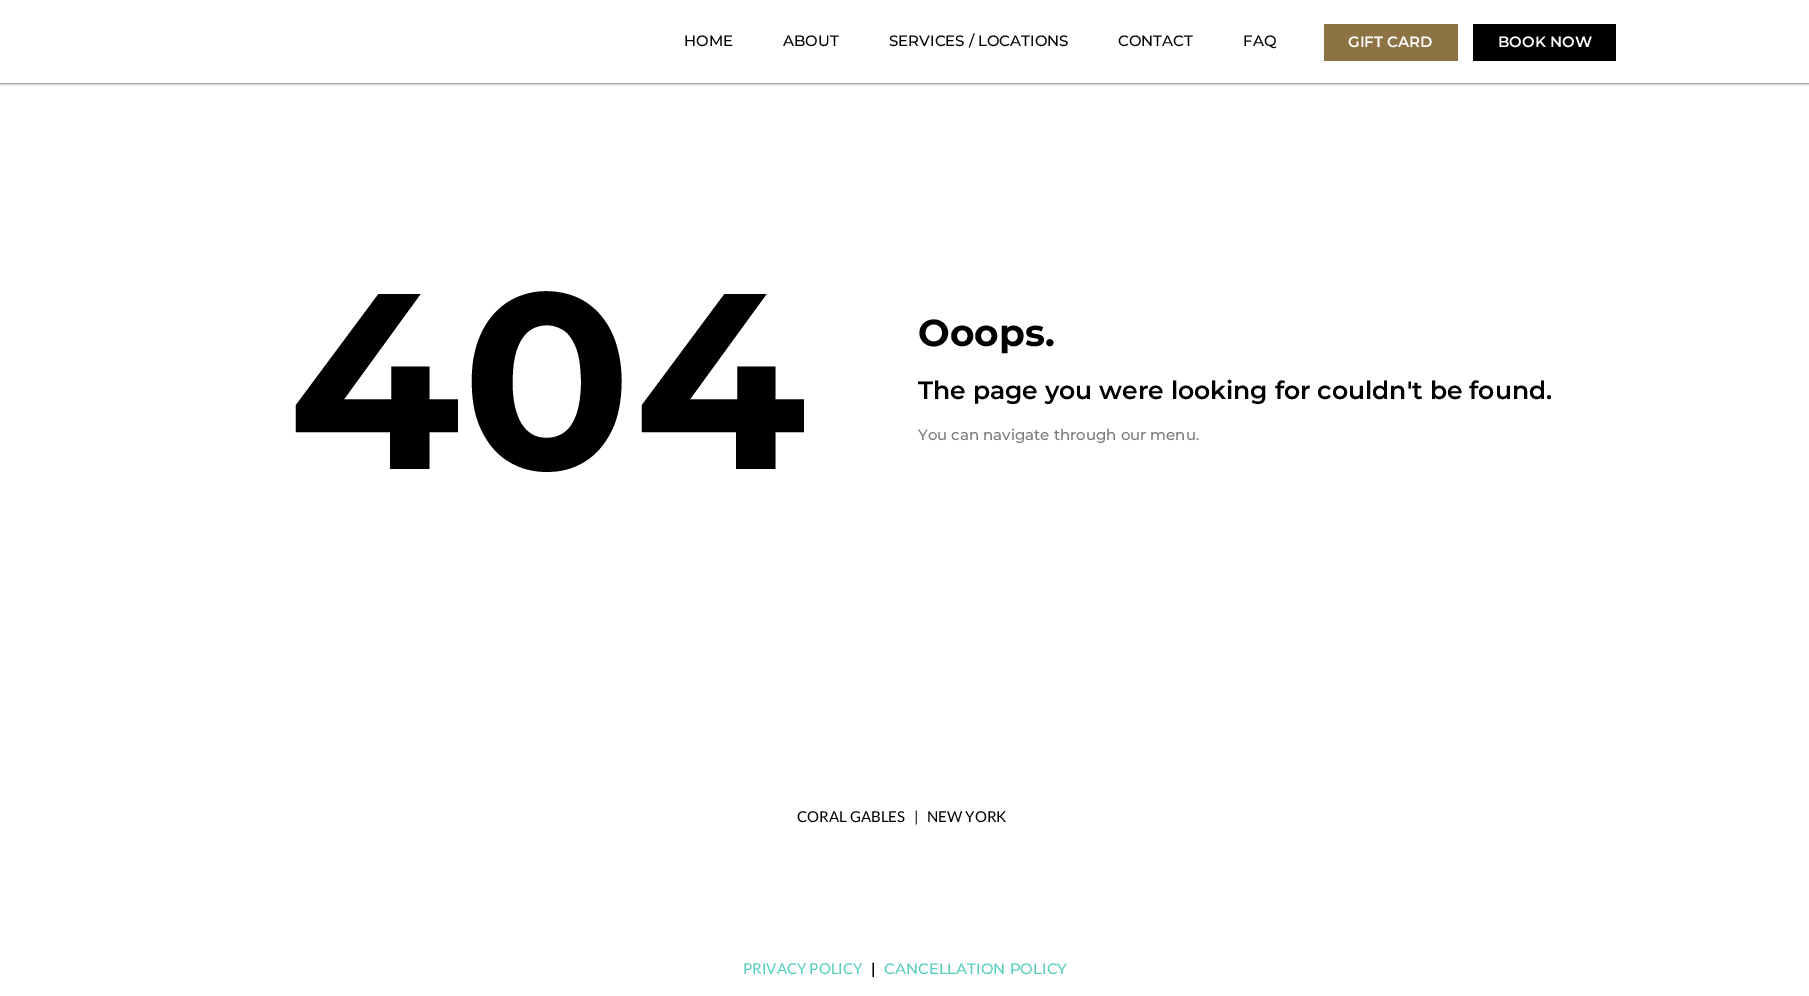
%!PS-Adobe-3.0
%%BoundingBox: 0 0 1809 996
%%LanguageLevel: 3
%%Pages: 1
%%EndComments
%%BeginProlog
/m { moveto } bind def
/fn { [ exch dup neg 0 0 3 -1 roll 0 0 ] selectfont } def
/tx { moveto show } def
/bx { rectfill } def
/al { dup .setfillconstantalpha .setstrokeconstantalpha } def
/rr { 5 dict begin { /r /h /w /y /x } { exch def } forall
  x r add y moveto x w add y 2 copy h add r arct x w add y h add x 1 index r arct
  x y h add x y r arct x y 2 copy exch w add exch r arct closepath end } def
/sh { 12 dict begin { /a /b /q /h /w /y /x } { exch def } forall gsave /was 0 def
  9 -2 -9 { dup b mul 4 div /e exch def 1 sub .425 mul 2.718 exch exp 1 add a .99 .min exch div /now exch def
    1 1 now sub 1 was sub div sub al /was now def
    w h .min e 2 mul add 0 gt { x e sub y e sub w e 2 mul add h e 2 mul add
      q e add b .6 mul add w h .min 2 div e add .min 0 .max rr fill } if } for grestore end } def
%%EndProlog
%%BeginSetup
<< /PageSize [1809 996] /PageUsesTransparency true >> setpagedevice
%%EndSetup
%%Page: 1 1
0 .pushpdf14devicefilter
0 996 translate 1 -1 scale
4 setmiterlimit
1 setgray
0 0 1809 996 bx
0 setgray
0 1 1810 83 0 1 0.5 sh
1 setgray
0 0 1809 83 bx
/Montserrat-Medium 15 fn
0 setgray
(HOME) 684 46 tx
(ABOUT) 783 46 tx
(SERVICES / LOCATIONS) 889 46 tx
(CONTACT) 1118 46 tx
(FAQ) 1243 46 tx
0.553 0.451 0.263 setrgbcolor
1324 24 134 37 bx
/Montserrat-SemiBold 15 fn
1 setgray
(GIFT CARD) 1348 47 tx
0 setgray
1473 24 143 37 bx
1 setgray
(BOOK NOW) 1498 47 tx
/Montserrat-Bold 250 fn
0 setgray
288 469 m 2 0 (404) ashow
/Montserrat-Bold 37.5 fn
(Ooops.) 918 346 tx
/Montserrat-SemiBold 25 fn
(The page you were looking for couldn't be found.) 918 399 tx
/Montserrat-Medium 15 fn
0.478 setgray
(You can navigate through our menu.) 918 440 tx
/Lato-Regular 15 fn
0 setgray
(CORAL GABLES) 797 822 tx
(|) 914 822 tx
(NEW YORK) 927 822 tx
0.329 0.8 0.745 setrgbcolor
(PRIVACY POLICY) 743 974 tx
/Montserrat-Medium 15 fn
0 setgray
(|) 871 974 tx
0.329 0.8 0.745 setrgbcolor
(CANCELLATION POLICY) 884 974 tx
.poppdf14devicefilter showpage
%%EOF
